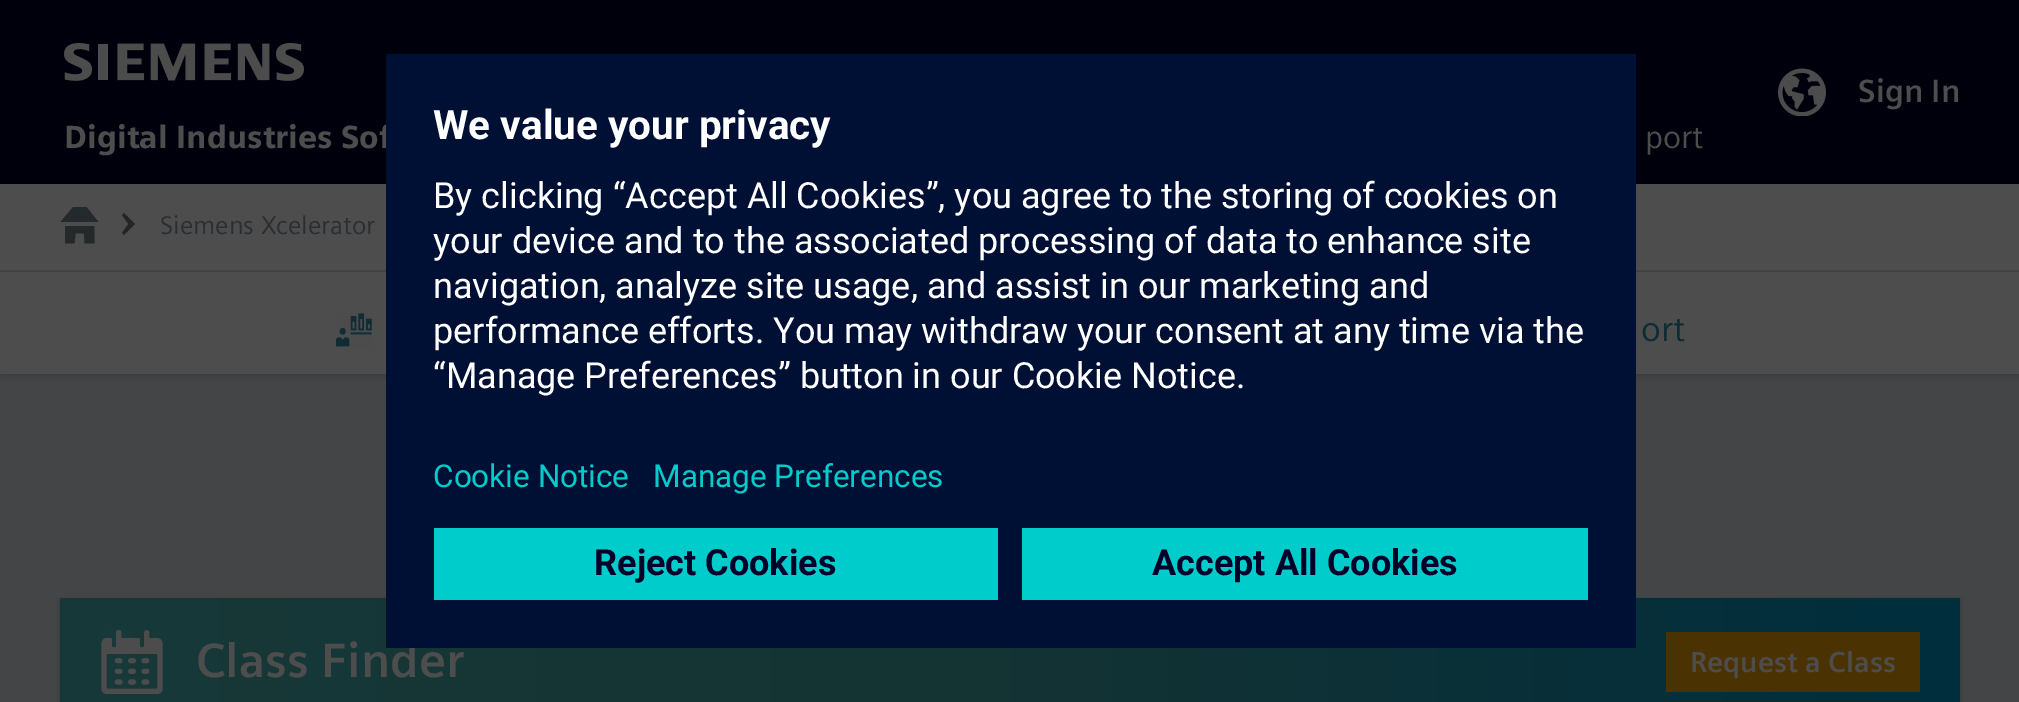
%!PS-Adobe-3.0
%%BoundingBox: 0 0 2019 702
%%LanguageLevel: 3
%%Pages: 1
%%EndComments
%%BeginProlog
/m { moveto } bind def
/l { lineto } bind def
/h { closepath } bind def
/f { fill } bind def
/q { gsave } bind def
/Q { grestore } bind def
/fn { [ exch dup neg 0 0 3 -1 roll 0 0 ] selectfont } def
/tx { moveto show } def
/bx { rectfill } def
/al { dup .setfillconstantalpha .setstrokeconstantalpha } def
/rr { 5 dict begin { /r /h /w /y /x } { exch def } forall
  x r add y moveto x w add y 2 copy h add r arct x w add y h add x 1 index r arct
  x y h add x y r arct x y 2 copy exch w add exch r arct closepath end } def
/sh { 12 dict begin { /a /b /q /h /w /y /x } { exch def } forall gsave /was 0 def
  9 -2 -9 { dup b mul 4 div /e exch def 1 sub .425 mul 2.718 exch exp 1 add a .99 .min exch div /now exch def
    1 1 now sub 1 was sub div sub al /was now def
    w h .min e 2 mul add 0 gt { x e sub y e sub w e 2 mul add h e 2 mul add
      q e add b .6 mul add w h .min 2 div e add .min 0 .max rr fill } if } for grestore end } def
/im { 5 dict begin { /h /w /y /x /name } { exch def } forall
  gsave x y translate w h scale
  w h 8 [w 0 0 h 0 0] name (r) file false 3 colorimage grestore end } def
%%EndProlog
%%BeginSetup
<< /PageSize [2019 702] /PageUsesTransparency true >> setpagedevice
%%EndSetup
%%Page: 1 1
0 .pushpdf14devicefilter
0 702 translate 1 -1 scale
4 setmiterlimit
0.263 0.271 0.278 setrgbcolor
0 0 2019 702 bx
0 0 0.047 setrgbcolor
0 0 2019 184 bx
(image0.raw) 1778 68 48 48 im
/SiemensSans-Bold 32 fn
0.302 setgray
(Sign In) 1858 102 tx
(image1.raw) 64 42 240 39 im
/SiemensSans-Black 32 fn
(Digital Industries Sof) 64 148 tx
/SiemensSans-Regular 32 fn
(port) 1645 148 tx
0 setgray
0 274 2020 102 0 4 0.15 sh
0.302 setgray
0 184 2019 86 bx
0.141 0.161 0.173 setrgbcolor
65 243.5 m 74.5 243.5 l 75.5 233.5 l 84 233.5 l 84.5 243.5 l 94.5 243.5 l 94.5 226 l 65 226 l h 73 207 m 60.5 222 l 98.5 222 l 86.5 207 l h f
0.125 0.141 0.153 setrgbcolor
124 213 m 122 215 l 128.5 224 l 122 233 l 124 235 l 135 224 l h f
/SiemensSans-Regular 25.5 fn
0.161 0.184 0.2 setrgbcolor
(Siemens Xcelerator) 160 234 tx
0.302 setgray
0 272 2019 102 bx
(image2.raw) 336 313 36 34 im
/SiemensSans-Regular 35 fn
0.059 0.173 0.208 setrgbcolor
(ort) 1641 341 tx
0 setgray
60 600 1900 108 0 2 0.2 sh
q 60 598 m 1960 598 l 1960 702 l 60 702 l h clip newpath
<< /ShadingType 2 /ColorSpace /DeviceRGB /Coords [60 662 1960 662] /Extend [true true] /Function << /FunctionType 3 /Domain [0 1] /Functions [<< /FunctionType 2 /Domain [0 1] /C0 [0.094 0.224 0.224] /C1 [0.078 0.2 0.2] /N 1 >> << /FunctionType 2 /Domain [0 1] /C0 [0.078 0.2 0.2] /C1 [0 0.18 0.239] /N 1 >>] /Bounds [0.5] /Encode [0 1 0 1] >> >> shfill Q
(image3.raw) 101 630 62 64 im
/SiemensSans-Bold 48 fn
0.302 setgray
(Class Finder) 196 677 tx
0.294 0.196 0.012 setrgbcolor
1666 632 254 60 bx
/SiemensSans-Bold 28.75 fn
0.302 setgray
(Request a Class) 1690 672 tx
0 0.063 0.204 setrgbcolor
386 54 1250 594 bx
/Roboto-Bold 40.5 fn
1 setgray
(We value your privacy) 433 139 tx
/Roboto-Regular 36 fn
(By clicking “Accept All Cookies”, you agree to the storing of cookies on) 433 208 tx
(your device and to the associated processing of data to enhance site) 433 253 tx
(navigation, analyze site usage, and assist in our marketing and) 433 298 tx
(performance efforts. You may withdraw your consent at any time via the) 433 343 tx
(“Manage Preferences” button in our Cookie Notice.) 433 388 tx
/Roboto-Regular 31.5 fn
0 0.8 0.8 setrgbcolor
(Cookie Notice) 433 487 tx
(Manage Preferences) 653 487 tx
434 528 564 72 bx
/Roboto-Bold 36 fn
0 0 0.157 setrgbcolor
(Reject Cookies) 594 575 tx
0 0.8 0.8 setrgbcolor
1022 528 566 72 bx
0 0 0.157 setrgbcolor
(Accept All Cookies) 1152 575 tx
.poppdf14devicefilter showpage
%%EOF
